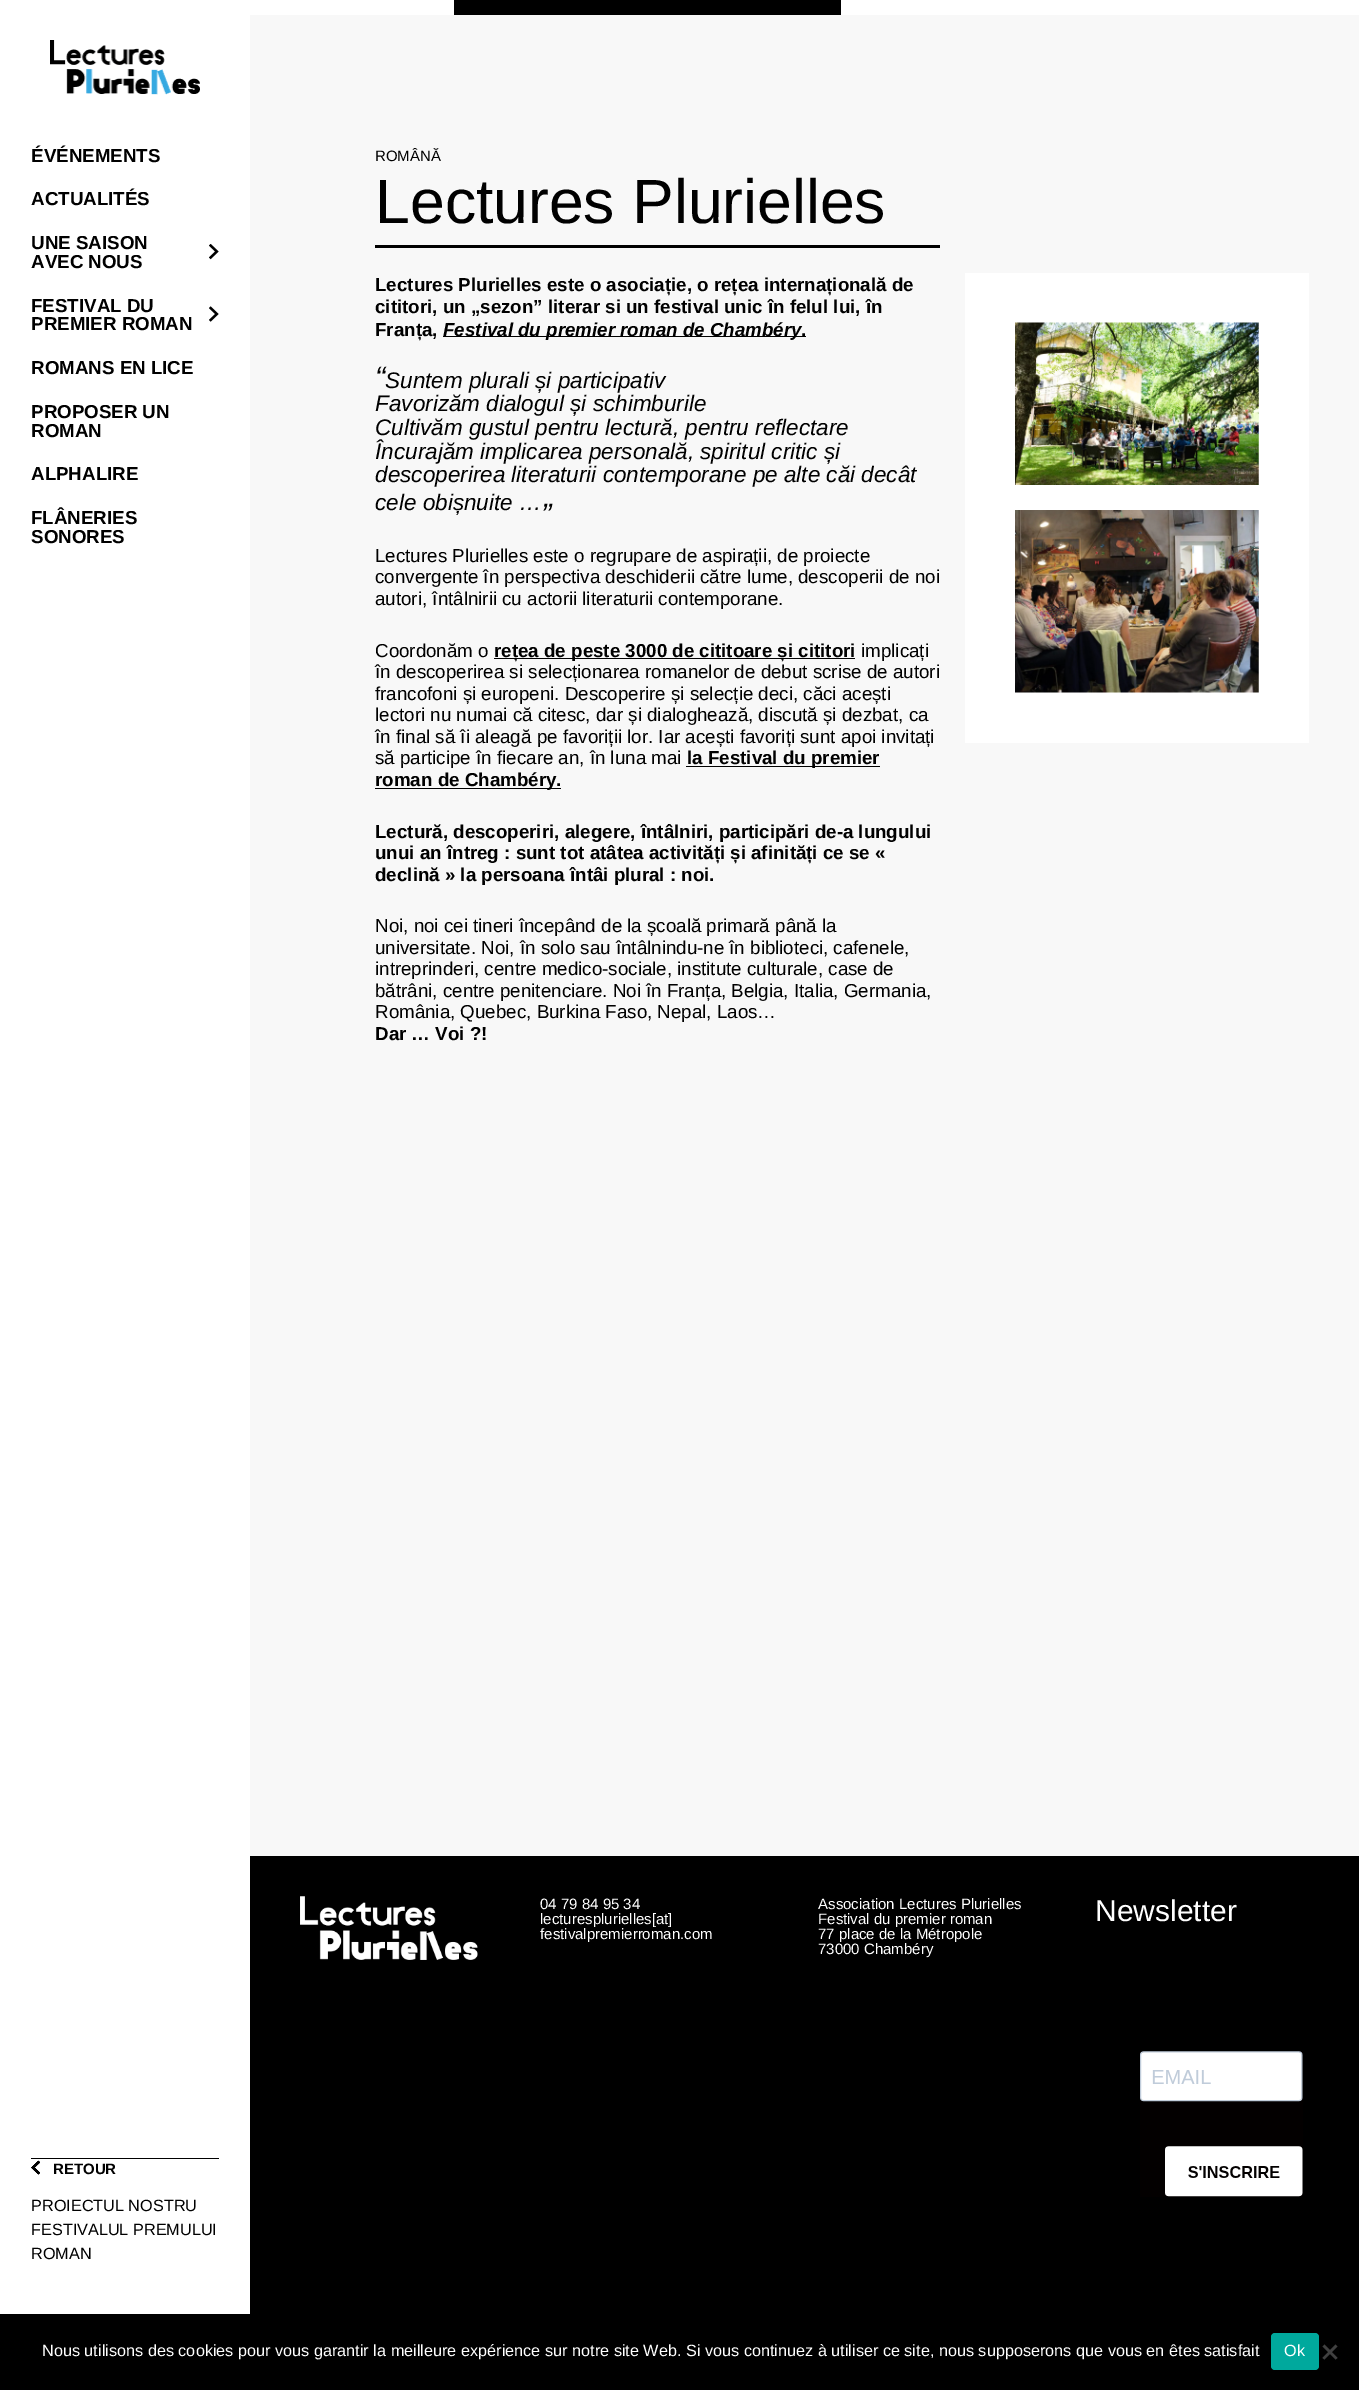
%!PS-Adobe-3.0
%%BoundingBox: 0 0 1359 2390
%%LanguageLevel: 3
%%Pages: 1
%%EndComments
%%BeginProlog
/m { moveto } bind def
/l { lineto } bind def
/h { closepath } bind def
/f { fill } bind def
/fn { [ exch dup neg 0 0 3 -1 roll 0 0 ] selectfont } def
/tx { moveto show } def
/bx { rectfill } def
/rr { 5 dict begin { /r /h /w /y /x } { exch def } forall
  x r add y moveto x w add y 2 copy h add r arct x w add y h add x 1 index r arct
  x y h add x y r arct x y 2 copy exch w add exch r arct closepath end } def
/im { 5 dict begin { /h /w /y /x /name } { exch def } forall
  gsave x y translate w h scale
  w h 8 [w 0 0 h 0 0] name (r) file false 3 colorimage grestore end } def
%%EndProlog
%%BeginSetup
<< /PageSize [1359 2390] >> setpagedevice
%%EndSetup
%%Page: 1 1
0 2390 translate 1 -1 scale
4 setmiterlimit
1 setgray
0 0 1359 2390 bx
0 setgray
454 0 387 15 bx
(image0.raw) 50 40 150 55 im
/LiberationSans-Bold 18.75 fn
(ÉVÉNEMENTS) 31 162 tx
(ACTUALITÉS) 31 205 tx
(UNE SAISON) 31 249 tx
(image1.raw) 209 244 10 16 im
(AVEC NOUS) 31 268 tx
(FESTIVAL DU) 31 312 tx
(image2.raw) 209 306 10 16 im
(PREMIER ROMAN) 31 330 tx
(ROMANS EN LICE) 31 374 tx
(PROPOSER UN) 31 418 tx
(ROMAN) 31 437 tx
(ALPHALIRE) 31 480 tx
(FLÂNERIES) 31 524 tx
(SONORES) 31 543 tx
31 2158 188 1 bx
(image6.raw) 31 2160 9 15 im
(image3.raw) 31 2160 9 15 im
(image4.raw) 31 2160 9 15 im
(image5.raw) 31 2160 9 15 im
/LiberationSans-Bold 15 fn
(RETOUR) 53 2174 tx
(image7.raw) 31 2160 9 15 im
/LiberationSans-Regular 16.25 fn
(PROIECTUL NOSTRU) 31 2211 tx
(FESTIVALUL PREMULUI) 31 2235 tx
(ROMAN) 31 2259 tx
0.973 setgray
250 15 1109 1841 bx
/LiberationSans-Regular 15 fn
0 setgray
(ROMÂNĂ) 375 161 tx
375 245 565 3 bx
/LiberationSans-Regular 62.5 fn
(Lectures Plurielles) 375 223 tx
/LiberationSans-Bold 18.75 fn
(Lectures Plurielles este o asociație, o rețea internațională de) 375 291 tx
(cititori, un „sezon” literar si un festival unic în felul lui, în) 375 313 tx
(Franța,) 375 336 tx
443 336 358 1 bx
/LiberationSans-BoldItalic 18.75 fn
(Festival du premier roman de Chambéry) 443 336 tx
/LiberationSans-Bold 18.75 fn
(.) 801 336 tx
801 336 5 1 bx
/LiberationSans-Italic 31 fn
(“) 375 388 tx
/LiberationSans-Italic 22.5 fn
(Suntem plurali și participativ) 385 388 tx
(Favorizăm dialogul și schimburile) 375 411 tx
(Cultivăm gustul pentru lectură, pentru reflectare) 375 435 tx
(Încurajăm implicarea personală, spiritul critic și) 375 459 tx
(descoperirea literaturii contemporane pe alte căi decât) 375 482 tx
(cele obișnuite …) 375 510 tx
/LiberationSans-Italic 31 fn
(”) 541 525 tx
/LiberationSans-Regular 18.75 fn
(Lectures Plurielles este o regrupare de aspirații, de proiecte) 375 562 tx
(convergente în perspectiva deschiderii către lume, descoperii de noi) 375 583 tx
(autori, întâlnirii cu actorii literaturii contemporane.) 375 605 tx
(Coordonăm o) 375 657 tx
494 658 361 1 bx
/LiberationSans-Bold 18.75 fn
(rețea de peste 3000 de cititoare și cititori) 494 657 tx
/LiberationSans-Regular 18.75 fn
(implicați) 861 657 tx
(în descoperirea si selecționarea romanelor de debut scrise de autori) 375 678 tx
(francofoni și europeni. Descoperire și selecție deci, căci acești) 375 700 tx
(lectori nu numai că citesc, dar și dialoghează, discută și dezbat, ca) 375 721 tx
(în final să îi aleagă pe favoriții lor. Iar acești favoriți sunt apoi invitați) 375 743 tx
(să participe în fiecare an, în luna mai) 375 764 tx
686 766 194 1 bx
/LiberationSans-Bold 18.75 fn
(la Festival du premier) 687 764 tx
375 788 186 1 bx
(roman de Chambéry.) 375 786 tx
(Lectură, descoperiri, alegere, întâlniri, participări de-a lungului) 375 838 tx
(unui an întreg : sunt tot atâtea activități și afinități ce se «) 375 859 tx
(declină » la persoana întâi plural : noi.) 375 881 tx
/LiberationSans-Regular 18.75 fn
(Noi, noi cei tineri începând de la școală primară până la) 375 932 tx
(universitate. Noi, în solo sau întâlnindu-ne în biblioteci, cafenele,) 375 954 tx
(intreprinderi, centre medico-sociale, institute culturale, case de) 375 975 tx
(bătrâni, centre penitenciare. Noi în Franța, Belgia, Italia, Germania,) 375 997 tx
(România, Quebec, Burkina Faso, Nepal, Laos…) 375 1018 tx
/LiberationSans-Bold 18.75 fn
(Dar … Voi ?!) 375 1040 tx
1 setgray
965 273 344 470 bx
(image8.raw) 1015 322 244 163 im
(image9.raw) 1015 510 244 183 im
0 setgray
250 1856 1109 458 bx
(image10.raw) 300 1896 178 64 im
/LiberationSans-Regular 15 fn
1 setgray
(04 79 84 95 34) 540 1909 tx
(lecturesplurielles[at]) 540 1924 tx
(festivalpremierroman.com) 540 1939 tx
(Association Lectures Plurielles) 818 1909 tx
(Festival du premier roman) 818 1924 tx
(77 place de la Métropole) 818 1939 tx
(73000 Chambéry) 818 1954 tx
/LiberationSans-Regular 30 fn
(Newsletter) 1095 1921 tx
(image11.raw) 1140 2051 163 146 im
0 setgray
0 2314 1359 76 bx
/LiberationSans-Regular 16.25 fn
1 setgray
(Nous utilisons des cookies pour vous garantir la meilleure expérience sur notre site Web. Si vous continuez à utiliser ce site, nous supposerons que vous en êtes satisfait) 42 2356 tx
0 0.663 0.616 setrgbcolor
1271 2333 48 37 4 rr f
1 setgray
(Ok) 1284 2356 tx
0.251 setgray
1335.5 2344.5 m 1337.5 2346.5 l 1324.5 2359.5 l 1322.5 2358 l h f
1322.5 2346.5 m 1324.5 2344.5 l 1337.5 2358 l 1335.5 2359.5 l h f
showpage
%%EOF
